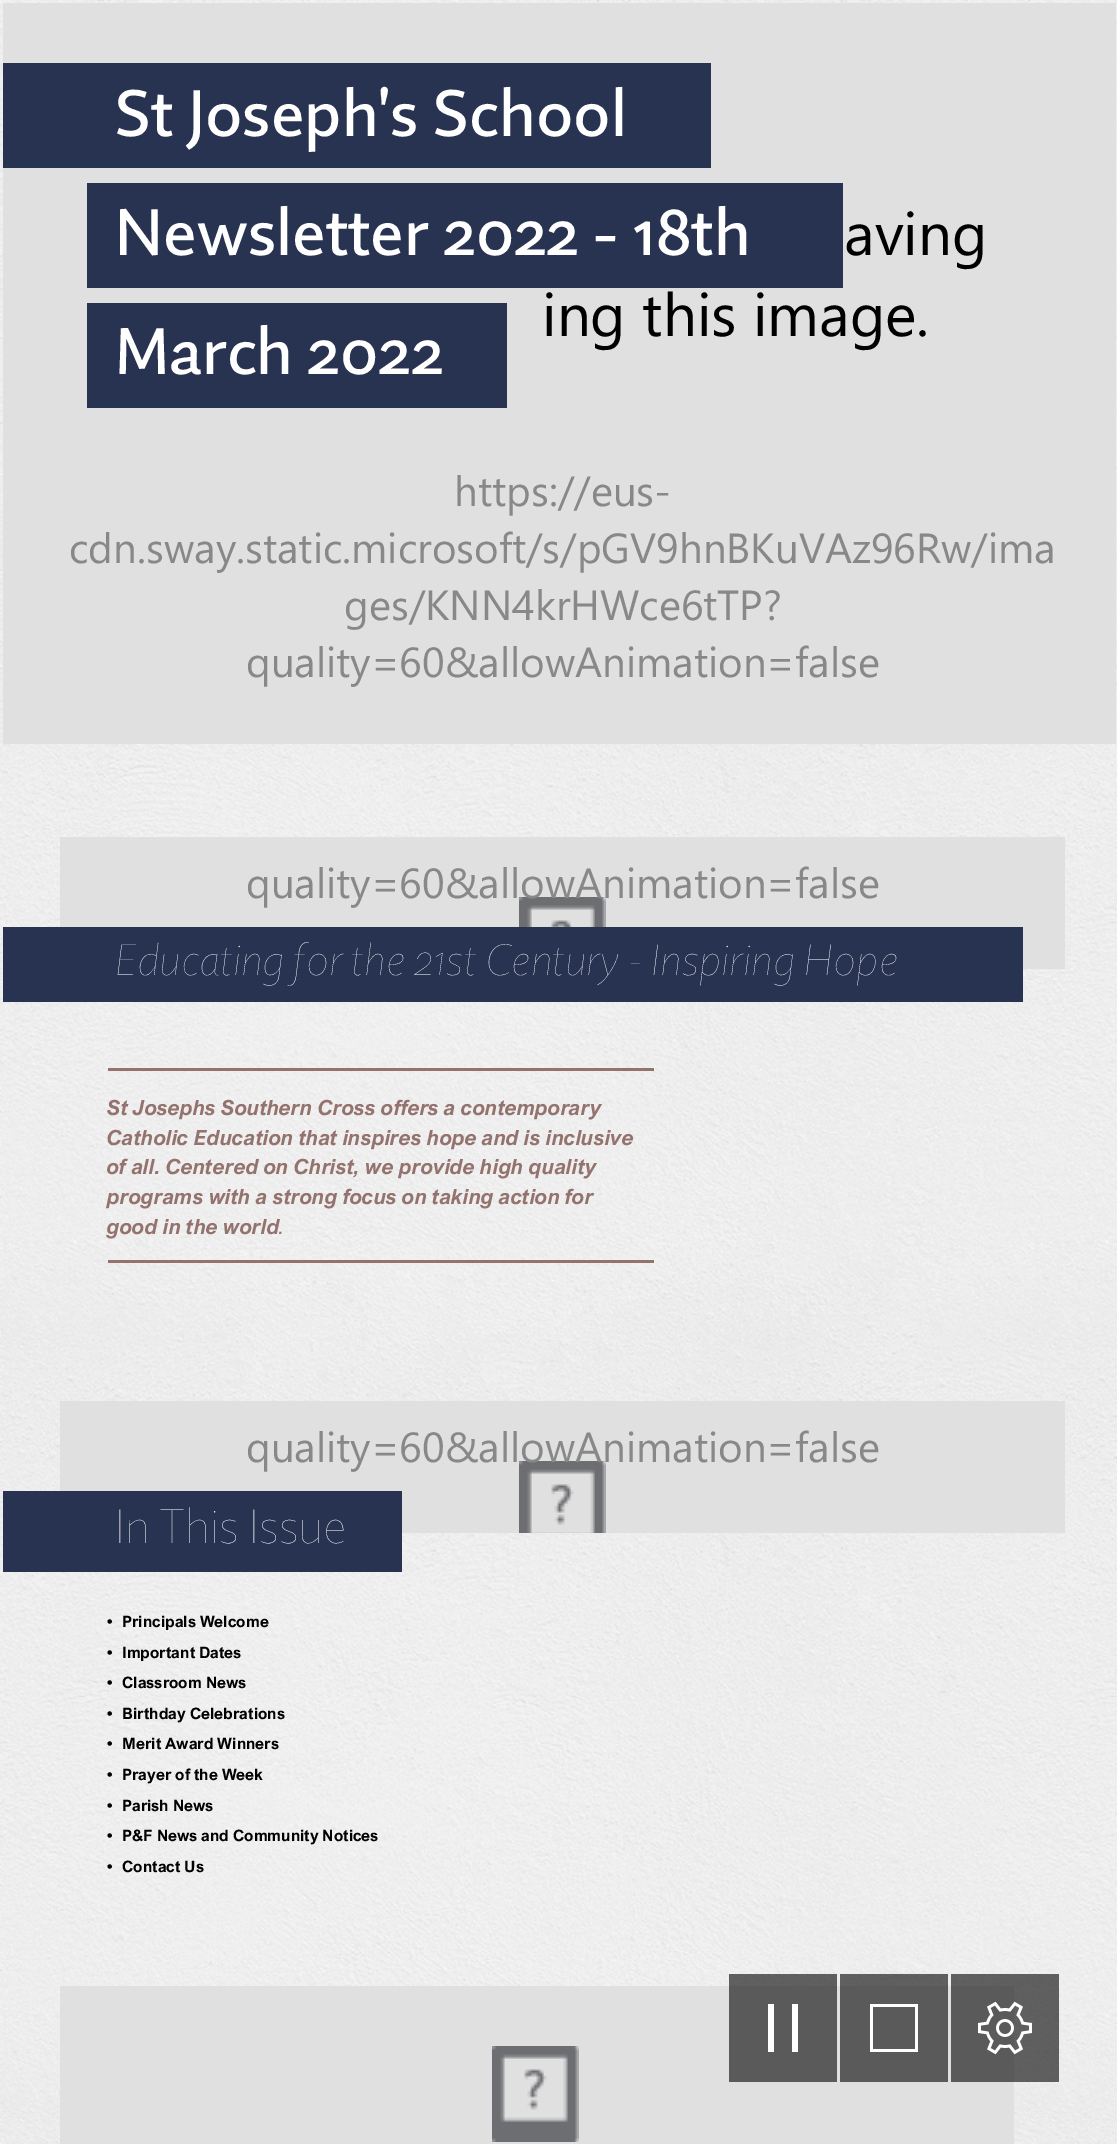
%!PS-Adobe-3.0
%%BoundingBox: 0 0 1117 2144
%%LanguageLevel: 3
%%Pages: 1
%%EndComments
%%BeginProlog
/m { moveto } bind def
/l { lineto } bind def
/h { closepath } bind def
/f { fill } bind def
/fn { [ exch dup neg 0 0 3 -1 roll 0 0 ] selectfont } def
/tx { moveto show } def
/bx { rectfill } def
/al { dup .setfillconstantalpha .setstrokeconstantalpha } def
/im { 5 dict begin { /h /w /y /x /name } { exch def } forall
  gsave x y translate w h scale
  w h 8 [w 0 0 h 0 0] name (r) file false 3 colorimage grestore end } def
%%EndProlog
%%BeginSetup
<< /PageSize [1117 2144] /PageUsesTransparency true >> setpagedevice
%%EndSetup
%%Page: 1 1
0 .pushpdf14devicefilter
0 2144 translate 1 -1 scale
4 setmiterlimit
0.918 setgray
0 0 1117 2144 bx
(image0.raw) 0 0 1117 2144 im
0.878 setgray
3 3 1113 741 bx
0.157 0.196 0.318 setrgbcolor
3 63 708 105 bx
/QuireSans-Medium 65.5 fn
1 setgray
(St Joseph's School) 115 136 tx
0.157 0.196 0.318 setrgbcolor
87 183 756 105 bx
1 setgray
(Newsletter 2022 - 18th) 115 255 tx
0.157 0.196 0.318 setrgbcolor
87 303 420 105 bx
1 setgray
(March 2022) 115 374 tx
/SegoeUI-Regular 60 fn
0 setgray
(aving) 844 255 tx
(ing this image.) 542 336 tx
/SegoeUI-Regular 42 fn
0.533 setgray
(https://eus-) 454 506 tx
(cdn.sway.static.microsoft/s/pGV9hnBKuVAz96Rw/ima) 69 563 tx
(ges/KNN4krHWce6tTP?) 344 620 tx
(quality=60&allowAnimation=false) 246 677 tx
0.878 setgray
60 837 1005 132 bx
(image1.raw) 519 897 87 30 im
0.533 setgray
(quality=60&allowAnimation=false) 246 898 tx
0.157 0.196 0.318 setrgbcolor
3 927 1020 75 bx
/QuireSans-ThinItalic 43.75 fn
1 setgray
(Educating for the 21st Century - Inspiring Hope) 115 975 tx
0.58 0.451 0.435 setrgbcolor
108 1068 546 3 bx
/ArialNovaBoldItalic-BoldItalic 21 fn
(St Josephs Southern Cross offers a contemporary) 107 1115 tx
(Catholic Education that inspires hope and is inclusive) 107 1145 tx
(of all. Centered on Christ, we provide high quality) 107 1174 tx
(programs with a strong focus on taking action for) 107 1204 tx
(good in the world) 107 1234 tx
/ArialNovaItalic-Italic 21 fn
(.) 279 1234 tx
108 1260 546 3 bx
0.878 setgray
60 1401 1005 132 bx
(image2.raw) 519 1461 87 72 im
/SegoeUI-Regular 42 fn
0.533 setgray
(quality=60&allowAnimation=false) 246 1462 tx
0.157 0.196 0.318 setrgbcolor
3 1491 399 81 bx
/QuireSans-Thin 48 fn
1 setgray
(In This Issue) 115 1543 tx
/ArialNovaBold-Bold 15.75 fn
0 setgray
(•) 107 1627 tx
(Principals Welcome) 122 1627 tx
(•) 107 1658 tx
(Important Dates) 122 1658 tx
(•) 107 1688 tx
(Classroom News) 122 1688 tx
(•) 107 1719 tx
(Birthday Celebrations) 122 1719 tx
(•) 107 1749 tx
(Merit Award Winners) 122 1749 tx
(•) 107 1780 tx
(Prayer of the Week) 122 1780 tx
(•) 107 1811 tx
(Parish News) 122 1811 tx
(•) 107 1841 tx
(P&F News and Community Notices) 122 1841 tx
(•) 107 1872 tx
(Contact Us) 122 1872 tx
0.878 setgray
60 1986 954 158 bx
(image3.raw) 492 2046 87 96 im
0.6 al
0 setgray
729 1974 108 108 bx
1 al
1 setgray
798 2052 m 792 2052 l 792 2004 l 798 2004 l h 774 2004 m 774 2052 l 768 2052 l 768 2004 l h f
0.6 al
0 setgray
840 1974 108 108 bx
1 al
1 setgray
918 2004 m 918 2052 l 870 2052 l 870 2004 l h 915 2007 m 873 2007 l 873 2049 l 915 2049 l h f
0.6 al
0 setgray
951 1974 108 108 bx
1 al
(image4.raw) 978 2001 54 54 im
.poppdf14devicefilter showpage
%%EOF
